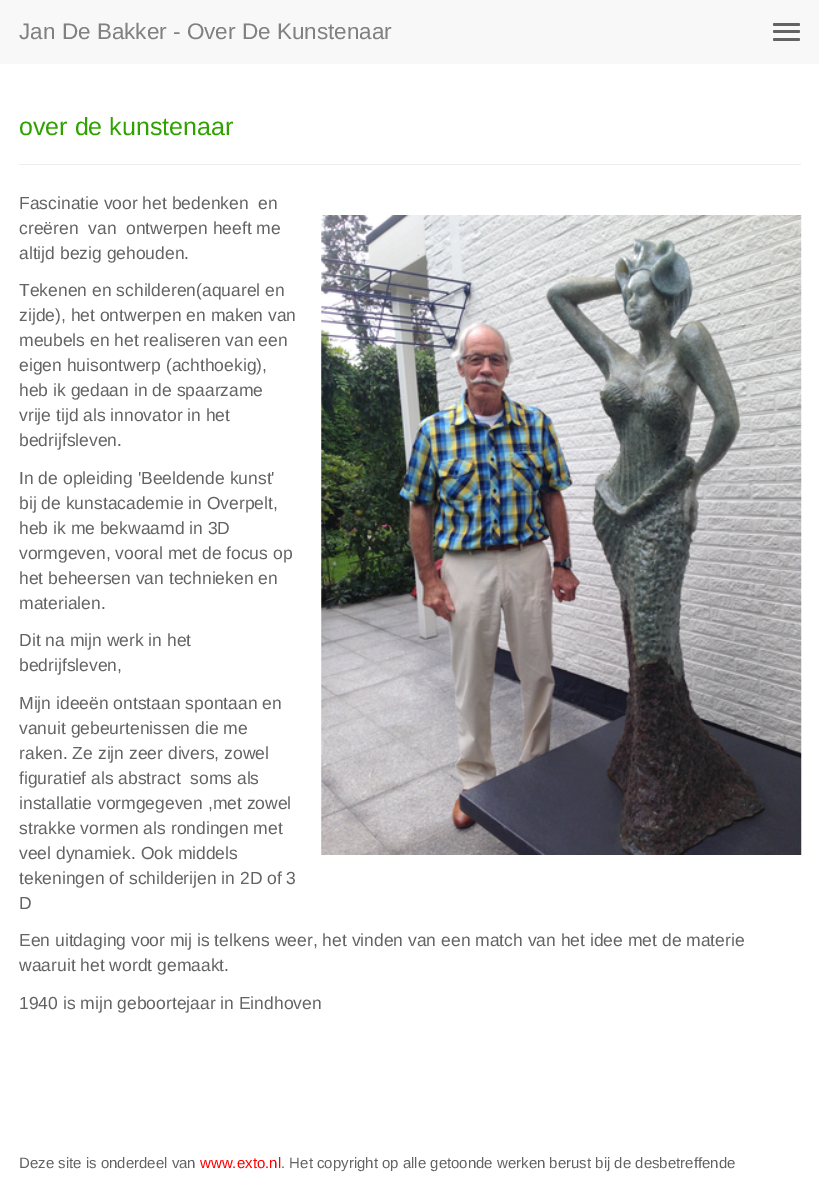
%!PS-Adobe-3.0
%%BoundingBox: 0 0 819 1181
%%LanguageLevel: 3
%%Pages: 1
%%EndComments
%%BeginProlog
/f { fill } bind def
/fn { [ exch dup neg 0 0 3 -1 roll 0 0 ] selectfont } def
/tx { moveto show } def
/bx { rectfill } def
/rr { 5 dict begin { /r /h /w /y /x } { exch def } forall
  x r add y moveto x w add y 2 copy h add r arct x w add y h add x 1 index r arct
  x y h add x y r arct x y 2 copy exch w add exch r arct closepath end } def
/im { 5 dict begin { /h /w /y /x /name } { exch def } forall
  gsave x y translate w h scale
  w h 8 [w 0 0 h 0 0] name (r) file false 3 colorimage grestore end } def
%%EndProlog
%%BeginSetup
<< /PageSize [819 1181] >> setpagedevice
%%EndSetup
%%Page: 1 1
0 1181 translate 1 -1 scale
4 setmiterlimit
1 setgray
0 0 819 1181 bx
0.973 setgray
0 0 819 64 bx
/LiberationSans-Regular 22.5 fn
0.51 0.506 0.506 setrgbcolor
(Jan De Bakker - Over De Kunstenaar) 19 39 tx
0.392 0.388 0.388 setrgbcolor
773 23 27 3 1.5 rr f
773 30 27 3 1.5 rr f
773 38 27 3 1.5 rr f
0.933 setgray
19 164 782 1 bx
/LiberationSans-Regular 25 fn
0.184 0.635 0 setrgbcolor
(over de kunstenaar) 19 135 tx
/LiberationSans-Regular 17.5 fn
0.392 0.388 0.388 setrgbcolor
(Fascinatie voor het bedenken  en) 19 209 tx
(creëren  van  ontwerpen heeft me) 19 234 tx
(altijd bezig gehouden.) 19 259 tx
(Tekenen en schilderen\(aquarel en) 19 296 tx
(zijde\), het ontwerpen en maken van) 19 321 tx
(meubels en het realiseren van een) 19 346 tx
(eigen huisontwerp \(achthoekig\),) 19 371 tx
(heb ik gedaan in de spaarzame) 19 396 tx
(vrije tijd als innovator in het) 19 421 tx
(bedrijfsleven.) 19 446 tx
(In de opleiding 'Beeldende kunst') 19 484 tx
(bij de kunstacademie in Overpelt,) 19 509 tx
(heb ik me bekwaamd in 3D) 19 534 tx
(vormgeven, vooral met de focus op) 19 559 tx
(het beheersen van technieken en) 19 584 tx
(materialen.) 19 609 tx
(Dit na mijn werk in het) 19 646 tx
(bedrijfsleven,) 19 671 tx
(Mijn ideeën ontstaan spontaan en) 19 709 tx
(vanuit gebeurtenissen die me) 19 734 tx
(raken. Ze zijn zeer divers, zowel) 19 759 tx
(figuratief als abstract  soms als) 19 784 tx
(installatie vormgegeven ,met zowel) 19 809 tx
(strakke vormen als rondingen met) 19 834 tx
(veel dynamiek. Ook middels) 19 859 tx
(tekeningen of schilderijen in 2D of 3) 19 884 tx
(D) 19 909 tx
(Een uitdaging voor mij is telkens weer, het vinden van een match van het idee met de materie) 19 946 tx
(waaruit het wordt gemaakt.) 19 971 tx
(1940 is mijn geboortejaar in Eindhoven) 19 1009 tx
(image0.raw) 321 215 481 640 im
/LiberationSans-Regular 15 fn
(Deze site is onderdeel van) 19 1168 tx
1 0 0 setrgbcolor
(www.exto.nl) 200 1168 tx
0.392 0.388 0.388 setrgbcolor
(. Het copyright op alle getoonde werken berust bij de desbetreffende) 281 1168 tx
showpage
%%EOF
